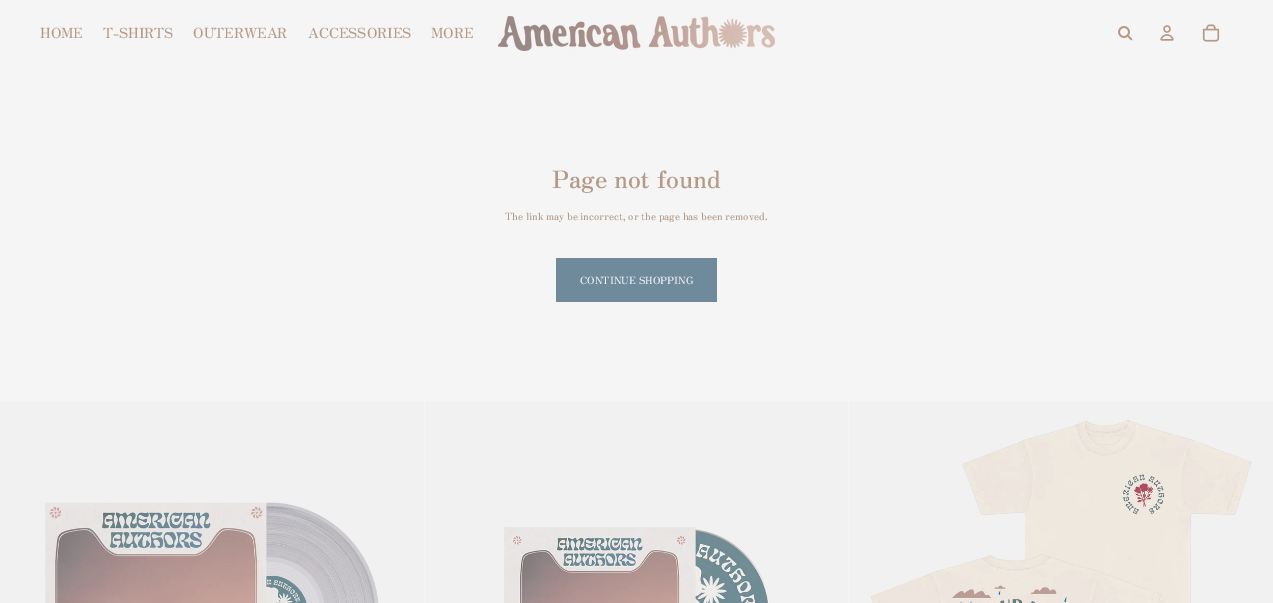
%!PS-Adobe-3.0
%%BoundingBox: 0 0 1273 603
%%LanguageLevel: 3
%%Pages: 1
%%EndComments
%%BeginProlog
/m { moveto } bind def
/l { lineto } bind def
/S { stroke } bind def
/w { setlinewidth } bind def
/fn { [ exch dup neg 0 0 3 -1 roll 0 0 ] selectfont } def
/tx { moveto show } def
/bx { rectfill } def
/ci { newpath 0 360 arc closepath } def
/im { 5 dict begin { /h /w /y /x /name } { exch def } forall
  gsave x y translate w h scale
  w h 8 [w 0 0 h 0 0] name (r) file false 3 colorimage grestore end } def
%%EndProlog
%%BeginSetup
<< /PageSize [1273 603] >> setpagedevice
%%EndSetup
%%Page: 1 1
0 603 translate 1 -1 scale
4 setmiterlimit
0.961 setgray
0 0 1273 603 bx
/ZenOldMincho-SemiBold 14 fn
0.714 0.604 0.525 setrgbcolor
(HOME) 40 38 tx
(T-SHIRTS) 103 38 tx
(OUTERWEAR) 193 38 tx
(ACCESSORIES) 308 38 tx
(MORE) 431 38 tx
(image0.raw) 498 16 277 35 im
1.7 w
1124 32 5 ci S
1 setlinecap
1 setlinejoin
1128 36 m 1131.5 39.5 l S
(image1.raw) 1160 25 14 16 im
(image2.raw) 1202 24 18 18 im
/ZenOldMincho-Bold 24 fn
(Page not found) 552 188 tx
/ZenOldMincho-SemiBold 10 fn
(The link may be incorrect, or the page has been removed.) 505 220 tx
0.431 0.541 0.608 setrgbcolor
556 258 161 44 bx
0.961 setgray
(CONTINUE SHOPPING) 580 284 tx
0.945 setgray
0 402 424 201 bx
(image3.raw) 45 502 334 101 im
425 402 423 201 bx
(image4.raw) 504 527 265 76 im
849 402 424 201 bx
(image5.raw) 870 420 382 183 im
showpage
%%EOF
